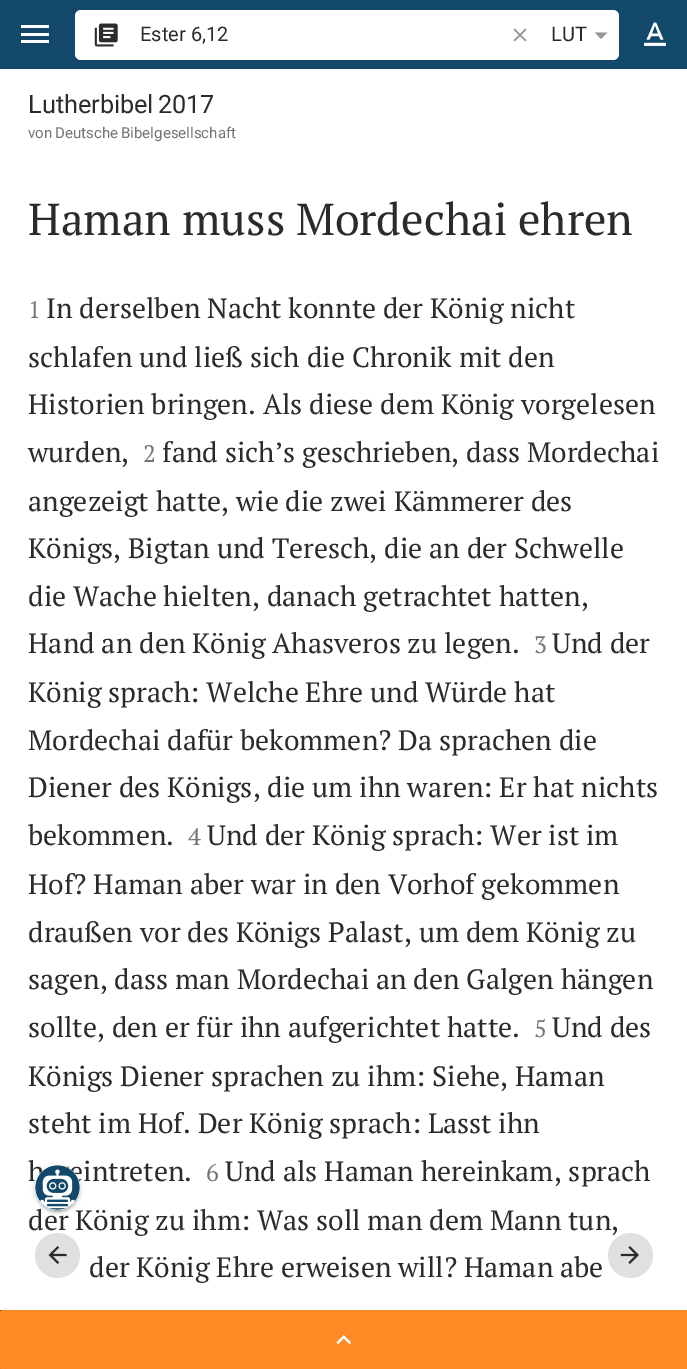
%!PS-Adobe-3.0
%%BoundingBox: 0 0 687 1369
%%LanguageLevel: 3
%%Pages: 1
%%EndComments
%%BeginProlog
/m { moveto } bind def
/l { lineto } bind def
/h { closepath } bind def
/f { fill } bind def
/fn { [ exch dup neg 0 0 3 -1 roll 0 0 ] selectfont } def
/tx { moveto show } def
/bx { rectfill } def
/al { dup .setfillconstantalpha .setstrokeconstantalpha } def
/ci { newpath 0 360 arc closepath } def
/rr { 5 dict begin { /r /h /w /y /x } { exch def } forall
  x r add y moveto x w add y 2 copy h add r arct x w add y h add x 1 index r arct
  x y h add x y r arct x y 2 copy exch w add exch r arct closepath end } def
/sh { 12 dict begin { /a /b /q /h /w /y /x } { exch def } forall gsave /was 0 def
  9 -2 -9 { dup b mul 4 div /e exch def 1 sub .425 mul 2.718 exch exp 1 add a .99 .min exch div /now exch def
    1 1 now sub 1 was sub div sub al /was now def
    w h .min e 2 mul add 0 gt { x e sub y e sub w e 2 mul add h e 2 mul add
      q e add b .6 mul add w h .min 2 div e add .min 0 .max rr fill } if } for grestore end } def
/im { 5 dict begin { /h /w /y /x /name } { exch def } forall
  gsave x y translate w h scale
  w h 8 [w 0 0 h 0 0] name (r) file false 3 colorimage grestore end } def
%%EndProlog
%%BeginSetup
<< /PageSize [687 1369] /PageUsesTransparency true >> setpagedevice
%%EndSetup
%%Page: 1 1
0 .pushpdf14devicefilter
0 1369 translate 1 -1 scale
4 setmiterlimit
1 setgray
0 0 687 1369 bx
0.071 0.286 0.416 setrgbcolor
0 0 687 69 bx
1 setgray
21 25 28 3 bx
21 33 28 3 bx
21 40 28 3 bx
75 10 544 50 6 rr f
(image0.raw) 94 23 24 24 im
/Roboto-Regular 20 fn
0.169 setgray
(Ester 6,12) 140 41 tx
(image1.raw) 513 28 14 14 im
(LUT) 551 41 tx
0.584 setgray
595 32.5 m 601 39 l 607.5 32.5 l h f
(image2.raw) 644 22 22 24 im
/Roboto-Regular 25.25 fn
0.169 setgray
28 113 m -2 0 32 (Lutherbibel 2017) widthshow
/Roboto-Regular 15.1 fn
0.459 setgray
(von) 28 138 tx
55 138 m -1 0 32 (Deutsche Bibelgesellschaft) widthshow
/PTSerif-Regular 44.75 fn
0.169 setgray
(Haman muss Mordechai ehren) 28 235 tx
/PTSerif-Regular 24 fn
0.459 setgray
(1) 28 318 tx
/PTSerif-Regular 28 fn
0.169 setgray
(In derselben Nacht konnte der König nicht) 46 318 tx
(schlafen und ließ sich die Chronik mit den) 28 367 tx
(Historien bringen. Als diese dem König vorgelesen) 28 414 tx
(wurden,) 28 462 tx
/PTSerif-Regular 24 fn
0.459 setgray
(2) 143 462 tx
/PTSerif-Regular 28 fn
0.169 setgray
(fand sich’s geschrieben, dass Mordechai) 162 462 tx
(angezeigt hatte, wie die zwei Kämmerer des) 28 511 tx
(Königs, Bigtan und Teresch, die an der Schwelle) 28 558 tx
(die Wache hielten, danach getrachtet hatten,) 28 606 tx
(Hand an den König Ahasveros zu legen.) 28 653 tx
/PTSerif-Regular 24 fn
0.459 setgray
(3) 534 653 tx
/PTSerif-Regular 28 fn
0.169 setgray
(Und der) 552 653 tx
(König sprach: Welche Ehre und Würde hat) 28 702 tx
(Mordechai dafür bekommen? Da sprachen die) 28 750 tx
(Diener des Königs, die um ihn waren: Er hat nichts) 28 797 tx
(bekommen.) 28 845 tx
/PTSerif-Regular 24 fn
0.459 setgray
(4) 188 845 tx
/PTSerif-Regular 28 fn
0.169 setgray
(Und der König sprach: Wer ist im) 207 845 tx
(Hof? Haman aber war in den Vorhof gekommen) 28 894 tx
(draußen vor des Königs Palast, um dem König zu) 28 942 tx
(sagen, dass man Mordechai an den Galgen hängen) 28 989 tx
(sollte, den er für ihn aufgerichtet hatte.) 28 1037 tx
/PTSerif-Regular 24 fn
0.459 setgray
(5) 534 1037 tx
/PTSerif-Regular 28 fn
0.169 setgray
(Und des) 552 1037 tx
(Königs Diener sprachen zu ihm: Siehe, Haman) 28 1086 tx
(steht im Hof. Der König sprach: Lasst ihn) 28 1133 tx
(h) 28 1181 tx
(eintreten.) 69 1181 tx
/PTSerif-Regular 24 fn
0.459 setgray
(6) 206 1181 tx
/PTSerif-Regular 28 fn
0.169 setgray
(Und als Haman hereinkam, sprach) 225 1181 tx
(der König zu ihm: Was soll man dem Mann tun,) 28 1230 tx
(der König Ehre erweisen will? Haman abe) 89 1277 tx
0.878 setgray
57.5 1255.5 22.5 ci f
(image3.raw) 48 1246 19 18 im
630.5 1255.5 22.5 ci f
(image4.raw) 620 1246 19 18 im
0.212 setgray
0 1310 687 59 bx
0.992 0.541 0.141 setrgbcolor
0 1310 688 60 2.5 rr f
(image5.raw) 336 1335 16 10 im
0 setgray
35 1166 45 45 22.5 3 0.12 sh
35 1168 45 45 22.5 1 0.14 sh
38 1171 40 40 20 0.5 0.2 sh
1 setgray
57.5 1187.5 22.5 ci f
(image6.raw) 35 1165 45 45 im
.poppdf14devicefilter showpage
%%EOF
